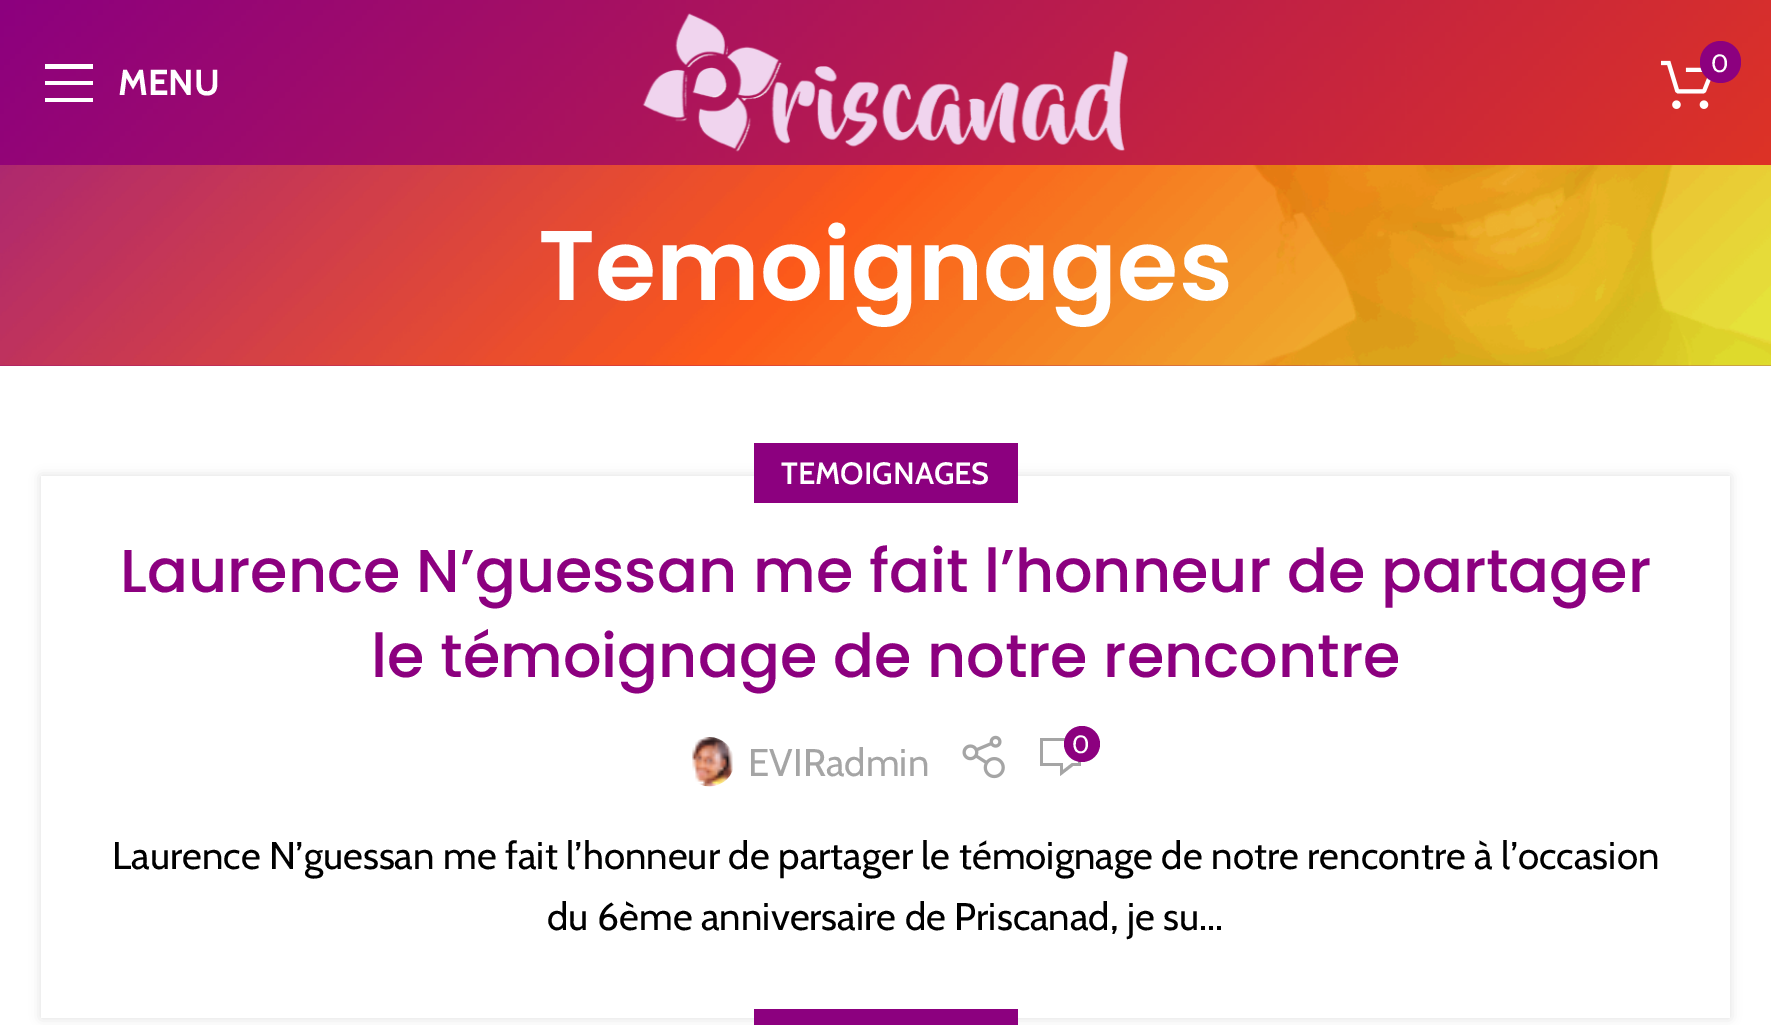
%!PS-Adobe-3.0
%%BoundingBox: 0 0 1771 1025
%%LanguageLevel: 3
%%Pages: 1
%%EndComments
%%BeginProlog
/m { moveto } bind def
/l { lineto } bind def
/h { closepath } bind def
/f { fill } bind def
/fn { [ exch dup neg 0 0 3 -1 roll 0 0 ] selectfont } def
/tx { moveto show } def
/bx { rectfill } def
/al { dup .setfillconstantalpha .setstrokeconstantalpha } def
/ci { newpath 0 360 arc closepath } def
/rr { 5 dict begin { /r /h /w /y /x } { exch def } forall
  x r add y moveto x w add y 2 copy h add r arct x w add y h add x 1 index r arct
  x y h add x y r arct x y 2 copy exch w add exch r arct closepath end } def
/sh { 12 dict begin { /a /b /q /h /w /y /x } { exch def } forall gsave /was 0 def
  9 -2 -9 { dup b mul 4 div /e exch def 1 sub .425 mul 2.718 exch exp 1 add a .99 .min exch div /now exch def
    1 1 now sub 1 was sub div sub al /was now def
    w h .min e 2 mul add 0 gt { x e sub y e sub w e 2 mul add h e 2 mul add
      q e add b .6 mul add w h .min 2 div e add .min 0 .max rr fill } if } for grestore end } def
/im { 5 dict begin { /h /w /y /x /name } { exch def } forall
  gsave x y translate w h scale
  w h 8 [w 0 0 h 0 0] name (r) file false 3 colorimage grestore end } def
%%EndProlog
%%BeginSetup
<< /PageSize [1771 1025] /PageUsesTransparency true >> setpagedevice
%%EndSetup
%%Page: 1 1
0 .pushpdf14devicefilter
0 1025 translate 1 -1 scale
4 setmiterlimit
1 setgray
0 0 1771 1025 bx
(image0.raw) 0 0 1771 165 im
(image1.raw) 642 13 486 139 im
(image2.raw) 1661 60 50 49 im
0.549 0 0.498 setrgbcolor
1700 41 41 42 20.5 rr f
/Cabin-Regular 25 fn
1 setgray
(0) 1711 72 tx
45 69 m 93 69 l 93 64 l 45 64 l h 45 85 m 93 85 l 93 81 l 45 81 l h 45 102 m 93 102 l 93 98 l 45 98 l h f
/Cabin-Bold 36 fn
(MENU) 118 95 tx
(image3.raw) 0 165 1771 201 im
/Poppins-SemiBold 99 fn
(Temoignages) 538 300 tx
0 setgray
41 476 1689 542 0 5.5 0.12 sh
1 setgray
41 476 1689 542 bx
0.549 0 0.498 setrgbcolor
754 443 264 60 bx
/Cabin-SemiBold 30.75 fn
1 setgray
(TEMOIGNAGES) 781 484 tx
/Poppins-Medium 60.5 fn
0.549 0 0.498 setrgbcolor
(Laurence N’guessan me fait l’honneur de partager) 120 592 tx
(le témoignage de notre rencontre) 371 677 tx
(image4.raw) 692 737 41 50 im
/Cabin-Regular 38.5 fn
0.647 setgray
(EVIRadmin) 748 776 tx
(image5.raw) 962 735 43 44 im
1073 766 m 1081 766 l 1081 738 l 1040 738 l 1040 766 l 1060 766 l 1060 776 l h 1063 770 m 1063 763 l 1043 763 l 1043 741 l 1078 741 l 1078 763 l 1072 763 l h f
0.549 0 0.498 setrgbcolor
1082 744 18 ci f
/Cabin-Regular 25 fn
1 setgray
(0) 1072 753 tx
/Cabin-Regular 38.5 fn
0 setgray
(Laurence N’guessan me fait l’honneur de partager le témoignage de notre rencontre à l’occasion) 112 869 tx
(du 6ème anniversaire de Priscanad, je su...) 547 930 tx
0.549 0 0.498 setrgbcolor
754 1009 264 16 bx
.poppdf14devicefilter showpage
%%EOF
